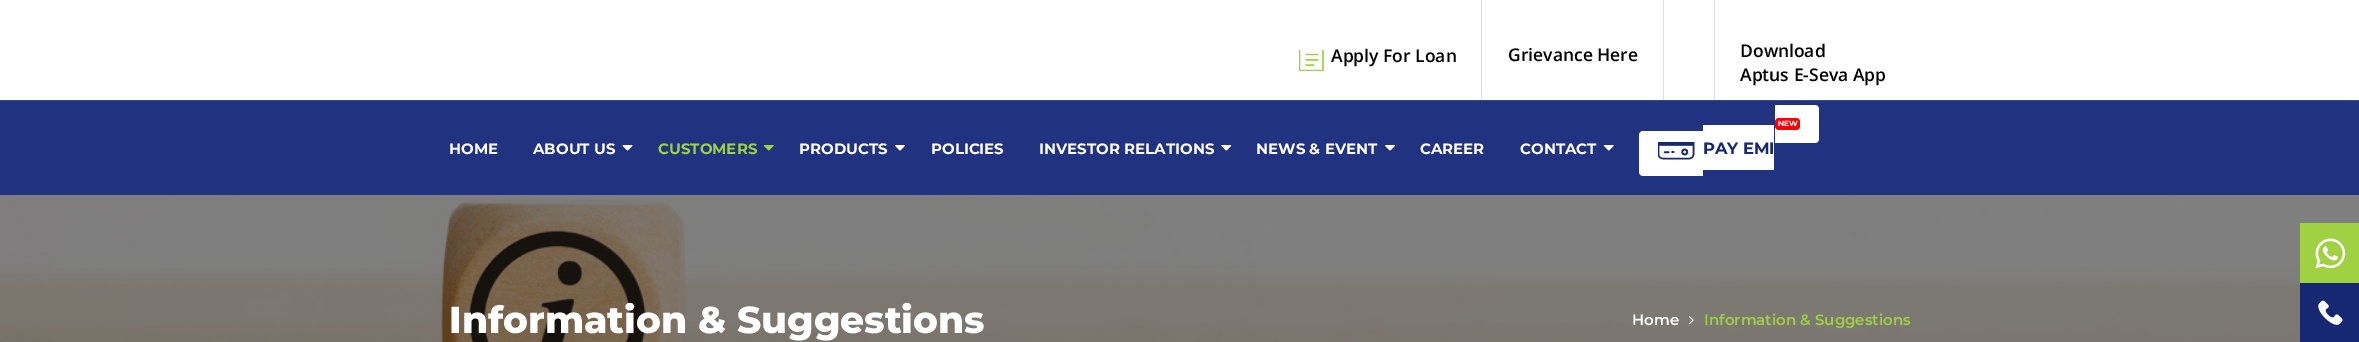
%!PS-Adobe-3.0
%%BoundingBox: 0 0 2359 342
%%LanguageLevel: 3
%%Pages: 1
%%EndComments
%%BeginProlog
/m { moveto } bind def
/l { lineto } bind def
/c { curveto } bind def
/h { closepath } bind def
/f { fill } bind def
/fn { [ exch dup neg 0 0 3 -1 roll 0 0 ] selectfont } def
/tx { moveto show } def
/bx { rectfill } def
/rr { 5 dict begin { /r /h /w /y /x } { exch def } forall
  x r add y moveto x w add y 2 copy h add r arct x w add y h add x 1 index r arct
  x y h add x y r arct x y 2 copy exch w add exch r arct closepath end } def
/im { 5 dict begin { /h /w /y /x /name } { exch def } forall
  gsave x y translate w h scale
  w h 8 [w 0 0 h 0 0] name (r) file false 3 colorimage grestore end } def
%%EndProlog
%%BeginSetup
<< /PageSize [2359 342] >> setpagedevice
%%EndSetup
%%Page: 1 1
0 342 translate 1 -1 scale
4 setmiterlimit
1 setgray
0 0 2359 342 bx
(image0.raw) 1299 50 25 21 im
/OpenSans-SemiBold 17.5 fn
0 setgray
(Apply For Loan) 1331 62 tx
0.878 setgray
1481 0 1 100 bx
0 setgray
(Grievance Here) 1508 61 tx
0.878 setgray
1663 0 1 100 bx
1714 0 1 100 bx
0 setgray
(Download) 1740 57 tx
(Aptus E-Seva App) 1740 81 tx
0.125 0.196 0.502 setrgbcolor
0 101 2359 94 bx
0.212 0.278 0.553 setrgbcolor
0 100 2359 1 bx
/Montserrat-Bold 15 fn
1 setgray
(HOME) 449 154 tx
(ABOUT US) 533 154 tx
(image1.raw) 622 145 11 6 im
0.624 0.82 0.259 setrgbcolor
(CUSTOMERS) 658 154 tx
(image2.raw) 763 145 11 6 im
1 setgray
(PRODUCTS) 799 154 tx
(image3.raw) 895 145 10 6 im
(POLICIES) 931 154 tx
(INVESTOR RELATIONS) 1039 154 tx
(image4.raw) 1221 145 11 6 im
(NEWS & EVENT) 1256 154 tx
(image3.raw) 1385 145 10 6 im
(CAREER) 1420 154 tx
(CONTACT) 1520 154 tx
(image5.raw) 1603 145 11 6 im
1643 131 m 1703 131 l 1703 176 l 1643 176 l 1641 176 1639 174 1639 172 c 1639 135 l 1639 133 1641 131 1643 131 c h f
1703 125 71 45 bx
1775 105 m 1815 105 l 1817 105 1819 107 1819 109 c 1819 139 l 1819 141 1817 143 1815 143 c 1775 143 l h f
1 0 0 setrgbcolor
1775 118 25 12 4 rr f
/Montserrat-Bold 7.5 fn
1 setgray
(NEW) 1778 126 tx
(image6.raw) 1658 142 37 18 im
/Montserrat-Bold 16.25 fn
0.09 0.157 0.451 setrgbcolor
(PAY EMI) 1703 154 tx
(image7.raw) 0 195 2359 147 im
/Montserrat-ExtraBold 37.5 fn
1 setgray
(Information & Suggestions) 449 333 tx
/Montserrat-SemiBold 15 fn
(Home) 1632 325 tx
(image8.raw) 1688 316 6 9 im
0.624 0.82 0.259 setrgbcolor
(Information & Suggestions) 1704 325 tx
2300 223 59 60 bx
(image9.raw) 2315 238 31 31 im
0.09 0.157 0.451 setrgbcolor
2300 283 59 59 bx
(image10.raw) 2318 300 25 25 im
showpage
%%EOF
